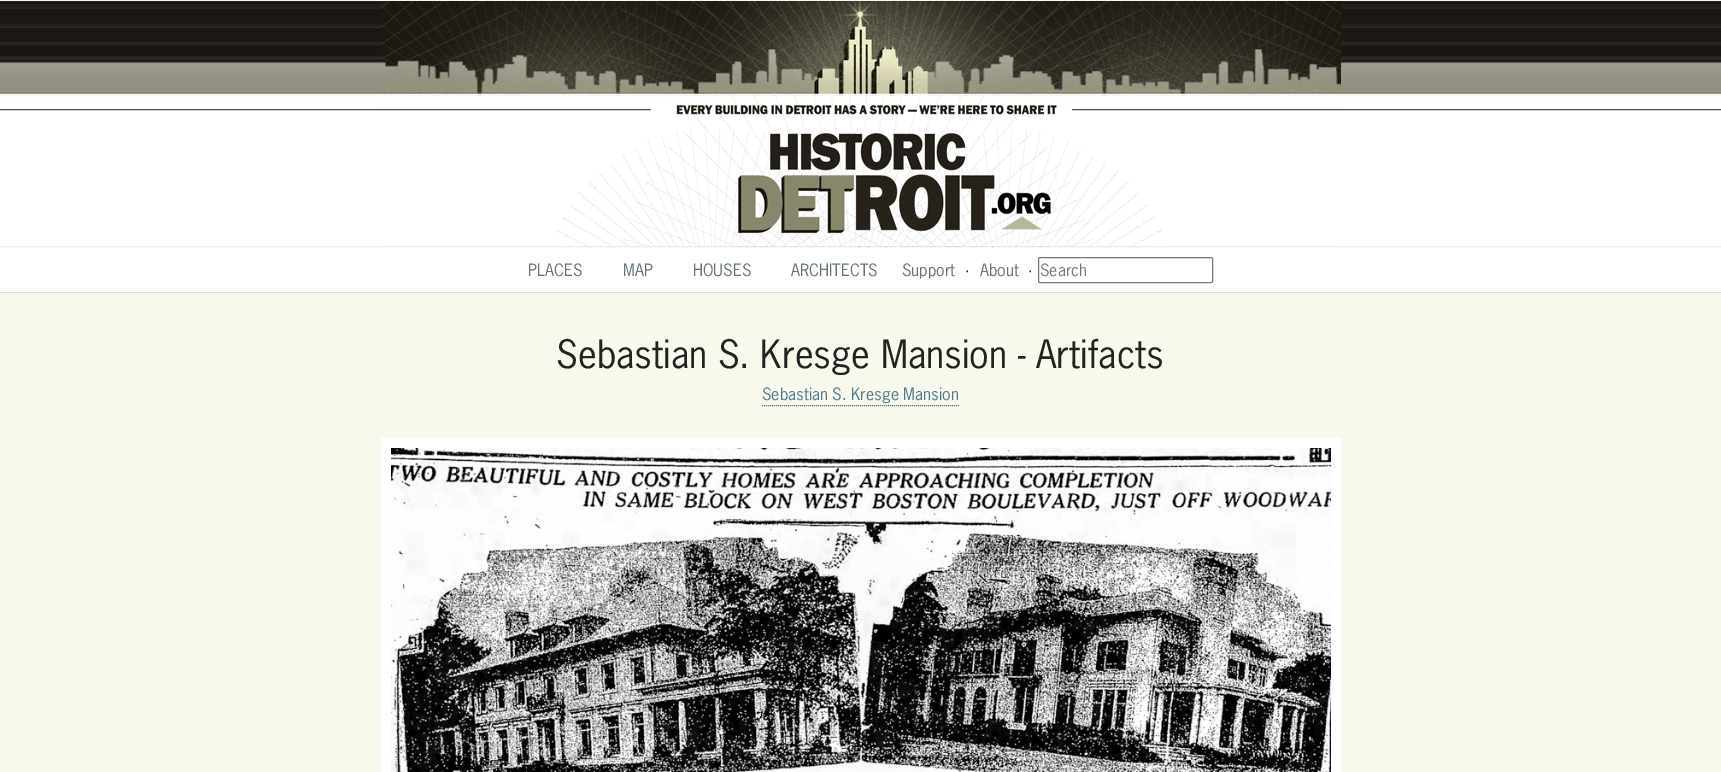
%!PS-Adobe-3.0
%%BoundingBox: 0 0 1721 772
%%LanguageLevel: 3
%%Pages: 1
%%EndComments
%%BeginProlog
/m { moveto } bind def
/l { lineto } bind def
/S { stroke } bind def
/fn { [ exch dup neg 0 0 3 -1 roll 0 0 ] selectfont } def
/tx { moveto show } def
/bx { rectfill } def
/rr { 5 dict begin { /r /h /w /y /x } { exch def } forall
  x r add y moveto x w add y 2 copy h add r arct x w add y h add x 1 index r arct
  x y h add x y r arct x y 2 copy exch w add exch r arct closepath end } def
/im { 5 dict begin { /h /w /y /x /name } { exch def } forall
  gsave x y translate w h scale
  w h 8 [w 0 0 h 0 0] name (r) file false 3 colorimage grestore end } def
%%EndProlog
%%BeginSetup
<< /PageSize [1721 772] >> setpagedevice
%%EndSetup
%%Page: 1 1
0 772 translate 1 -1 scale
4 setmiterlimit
0.976 0.973 0.925 setrgbcolor
0 0 1721 772 bx
(image0.raw) 0 1 1721 246 im
(image1.raw) 381 1 960 246 im
1 setgray
0 248 1721 44 bx
0.867 setgray
0 292 1721 1 bx
/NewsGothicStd-Regular 16 fn
0.388 0.443 0.475 setrgbcolor
(PLACES) 528 276 tx
(MAP) 623 276 tx
(HOUSES) 693 276 tx
(ARCHITECTS) 791 276 tx
(Support) 902 276 tx
0.133 setgray
(·) 965 276 tx
0.388 0.443 0.475 setrgbcolor
(About) 980 276 tx
0.133 setgray
(·) 1028 276 tx
0.463 setgray
1038.5 257.5 174 25 1.5 rr S
0.459 setgray
(Search) 1040 276 tx
/NewsGothicStd-Regular 36.75 fn
0.133 setgray
(Sebastian S. Kresge Mansion - Artifacts) 556 368 tx
/NewsGothicStd-Regular 16 fn
0.302 0.475 0.561 setrgbcolor
(Sebastian S. Kresge Mansion) 762 400 tx
[1 1] 0 setdash
762 405.5 m 959 405.5 l S
1 setgray
381 438 960 334 bx
(image2.raw) 391 448 940 324 im
showpage
%%EOF
